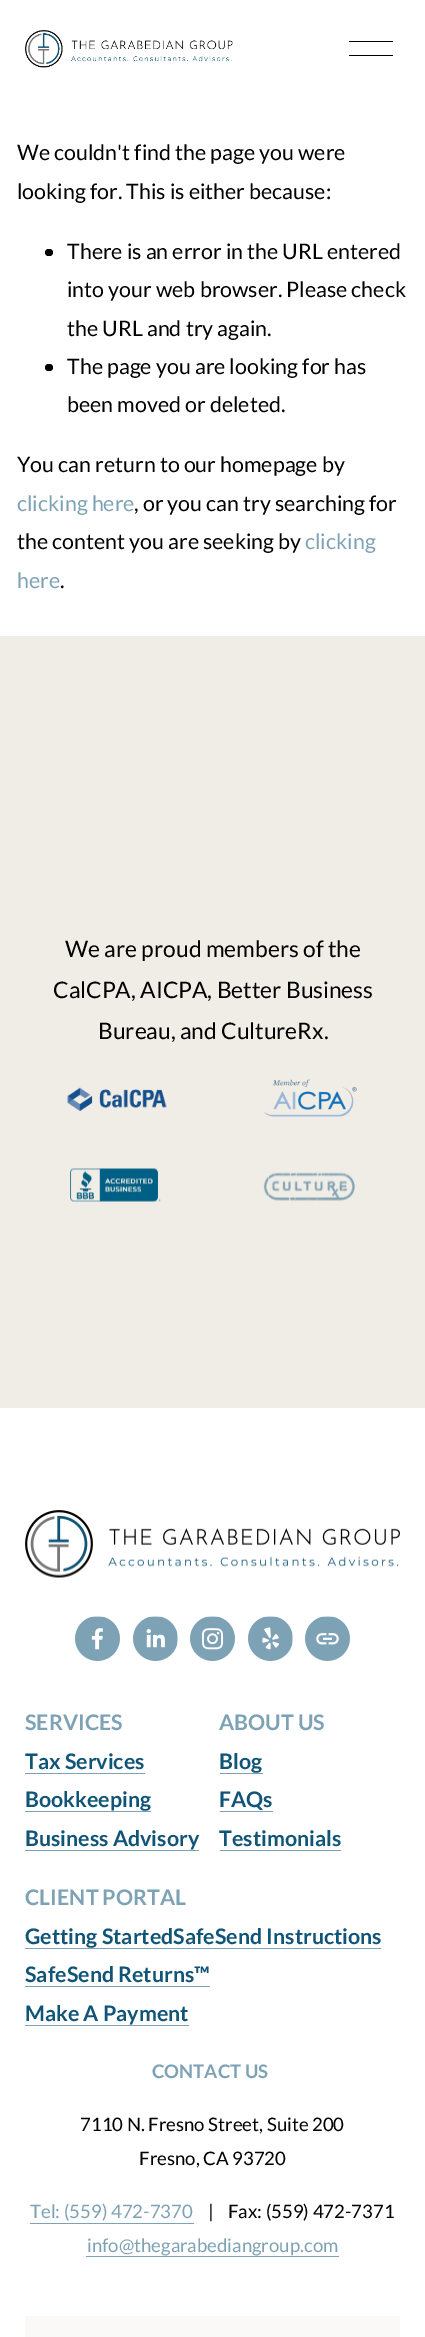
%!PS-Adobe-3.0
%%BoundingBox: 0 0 425 2337
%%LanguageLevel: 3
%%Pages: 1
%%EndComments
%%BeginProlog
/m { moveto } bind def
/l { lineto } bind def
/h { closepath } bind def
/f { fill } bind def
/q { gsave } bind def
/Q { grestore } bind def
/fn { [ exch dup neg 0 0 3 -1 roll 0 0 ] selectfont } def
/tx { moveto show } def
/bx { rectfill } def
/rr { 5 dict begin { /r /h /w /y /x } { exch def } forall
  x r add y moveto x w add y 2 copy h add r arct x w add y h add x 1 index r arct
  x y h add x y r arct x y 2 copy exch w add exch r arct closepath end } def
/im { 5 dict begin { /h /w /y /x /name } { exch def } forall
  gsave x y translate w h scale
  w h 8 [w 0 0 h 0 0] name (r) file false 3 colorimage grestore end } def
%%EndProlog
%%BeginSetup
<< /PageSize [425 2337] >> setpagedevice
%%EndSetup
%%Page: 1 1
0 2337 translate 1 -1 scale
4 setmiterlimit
1 setgray
0 0 425 2337 bx
(image0.raw) 25 30 208 38 im
0 setgray
349 41 44 1 bx
349 55 44 1 bx
/Lato-Regular 21.4 fn
(We couldn't find the page you were) 17 160 tx
(looking for. This is either because:) 17 199 tx
45 249 8 7 3.5 rr f
(There is an error in the URL entered) 67 259 tx
(into your web browser. Please check) 67 297 tx
(the URL and try again.) 67 336 tx
45 364 8 7 3.5 rr f
(The page you are looking for has) 67 374 tx
(been moved or deleted.) 67 412 tx
(You can return to our homepage by) 17 472 tx
0.494 0.635 0.71 setrgbcolor
(clicking here) 17 511 tx
0 setgray
(, or you can try searching for) 134 511 tx
(the content you are seeking by) 17 549 tx
0.494 0.635 0.71 setrgbcolor
(clicking) 305 549 tx
(here) 17 588 tx
0 setgray
(.) 60 588 tx
0.941 0.929 0.902 setrgbcolor
0 636 425 772 bx
/Lato-Regular 22.75 fn
0 setgray
(We are proud members of the) 65 957 tx
(CalCPA, AICPA, Better Business) 53 998 tx
(Bureau, and CultureRx.) 98 1039 tx
(image1.raw) 67 1087 100 24 im
(image2.raw) 263 1079 94 38 im
(image3.raw) 70 1168 91 34 im
(image4.raw) 263 1172 92 29 im
(image5.raw) 25 1510 375 68 im
(image6.raw) 75 1616 45 45 im
(image7.raw) 133 1616 45 45 im
(image8.raw) 190 1616 45 45 im
(image9.raw) 248 1616 45 45 im
(image10.raw) 305 1616 45 45 im
/Lato-Bold 21.4 fn
0.494 0.635 0.71 setrgbcolor
(SERVICES) 25 1730 tx
0.063 0.329 0.471 setrgbcolor
(Tax Services) 25 1769 tx
0.494 0.635 0.71 setrgbcolor
25 1773 120 1 bx
0.063 0.329 0.471 setrgbcolor
(Bookkeeping) 25 1807 tx
0.494 0.635 0.71 setrgbcolor
25 1811 126 1 bx
0.063 0.329 0.471 setrgbcolor
(Business Advisory) 25 1846 tx
0.494 0.635 0.71 setrgbcolor
25 1850 174 1 bx
(ABOUT US) 219 1730 tx
0.063 0.329 0.471 setrgbcolor
(Blog) 219 1769 tx
0.494 0.635 0.71 setrgbcolor
220 1773 43 1 bx
0.063 0.329 0.471 setrgbcolor
(FAQs) 219 1807 tx
0.494 0.635 0.71 setrgbcolor
220 1811 53 1 bx
q
219.5 1704 m 399.5 1704 l 399.5 1857.5 l 219.5 1857.5 l h clip newpath
0.063 0.329 0.471 setrgbcolor
(Testimonials) 219 1846 tx
Q
220 1850 121 1 bx
(CLIENT PORTAL) 25 1905 tx
0.063 0.329 0.471 setrgbcolor
(Getting StartedSafeSend Instructions) 25 1944 tx
0.494 0.635 0.71 setrgbcolor
25 1948 356 1 bx
0.063 0.329 0.471 setrgbcolor
(SafeSend Returns™) 25 1982 tx
0.494 0.635 0.71 setrgbcolor
25 1986 185 1 bx
0.063 0.329 0.471 setrgbcolor
(Make A Payment) 25 2021 tx
0.494 0.635 0.71 setrgbcolor
25 2025 164 1 bx
/Lato-Bold 18.6 fn
(CONTACT US) 152 2078 tx
/Lato-Regular 18.6 fn
0 setgray
(7110 N. Fresno Street, Suite 200) 80 2131 tx
(Fresno, CA 93720) 139 2165 tx
0.494 0.635 0.71 setrgbcolor
(Tel: \(559\) 472-7370) 30 2218 tx
30 2223 164 1 bx
0 setgray
(|    Fax: \(559\) 472-7371) 208 2218 tx
0.494 0.635 0.71 setrgbcolor
(info@thegarabediangroup.com) 87 2252 tx
86 2256 253 1 bx
0.98 0.976 0.969 setrgbcolor
25 2316 375 21 bx
showpage
%%EOF
